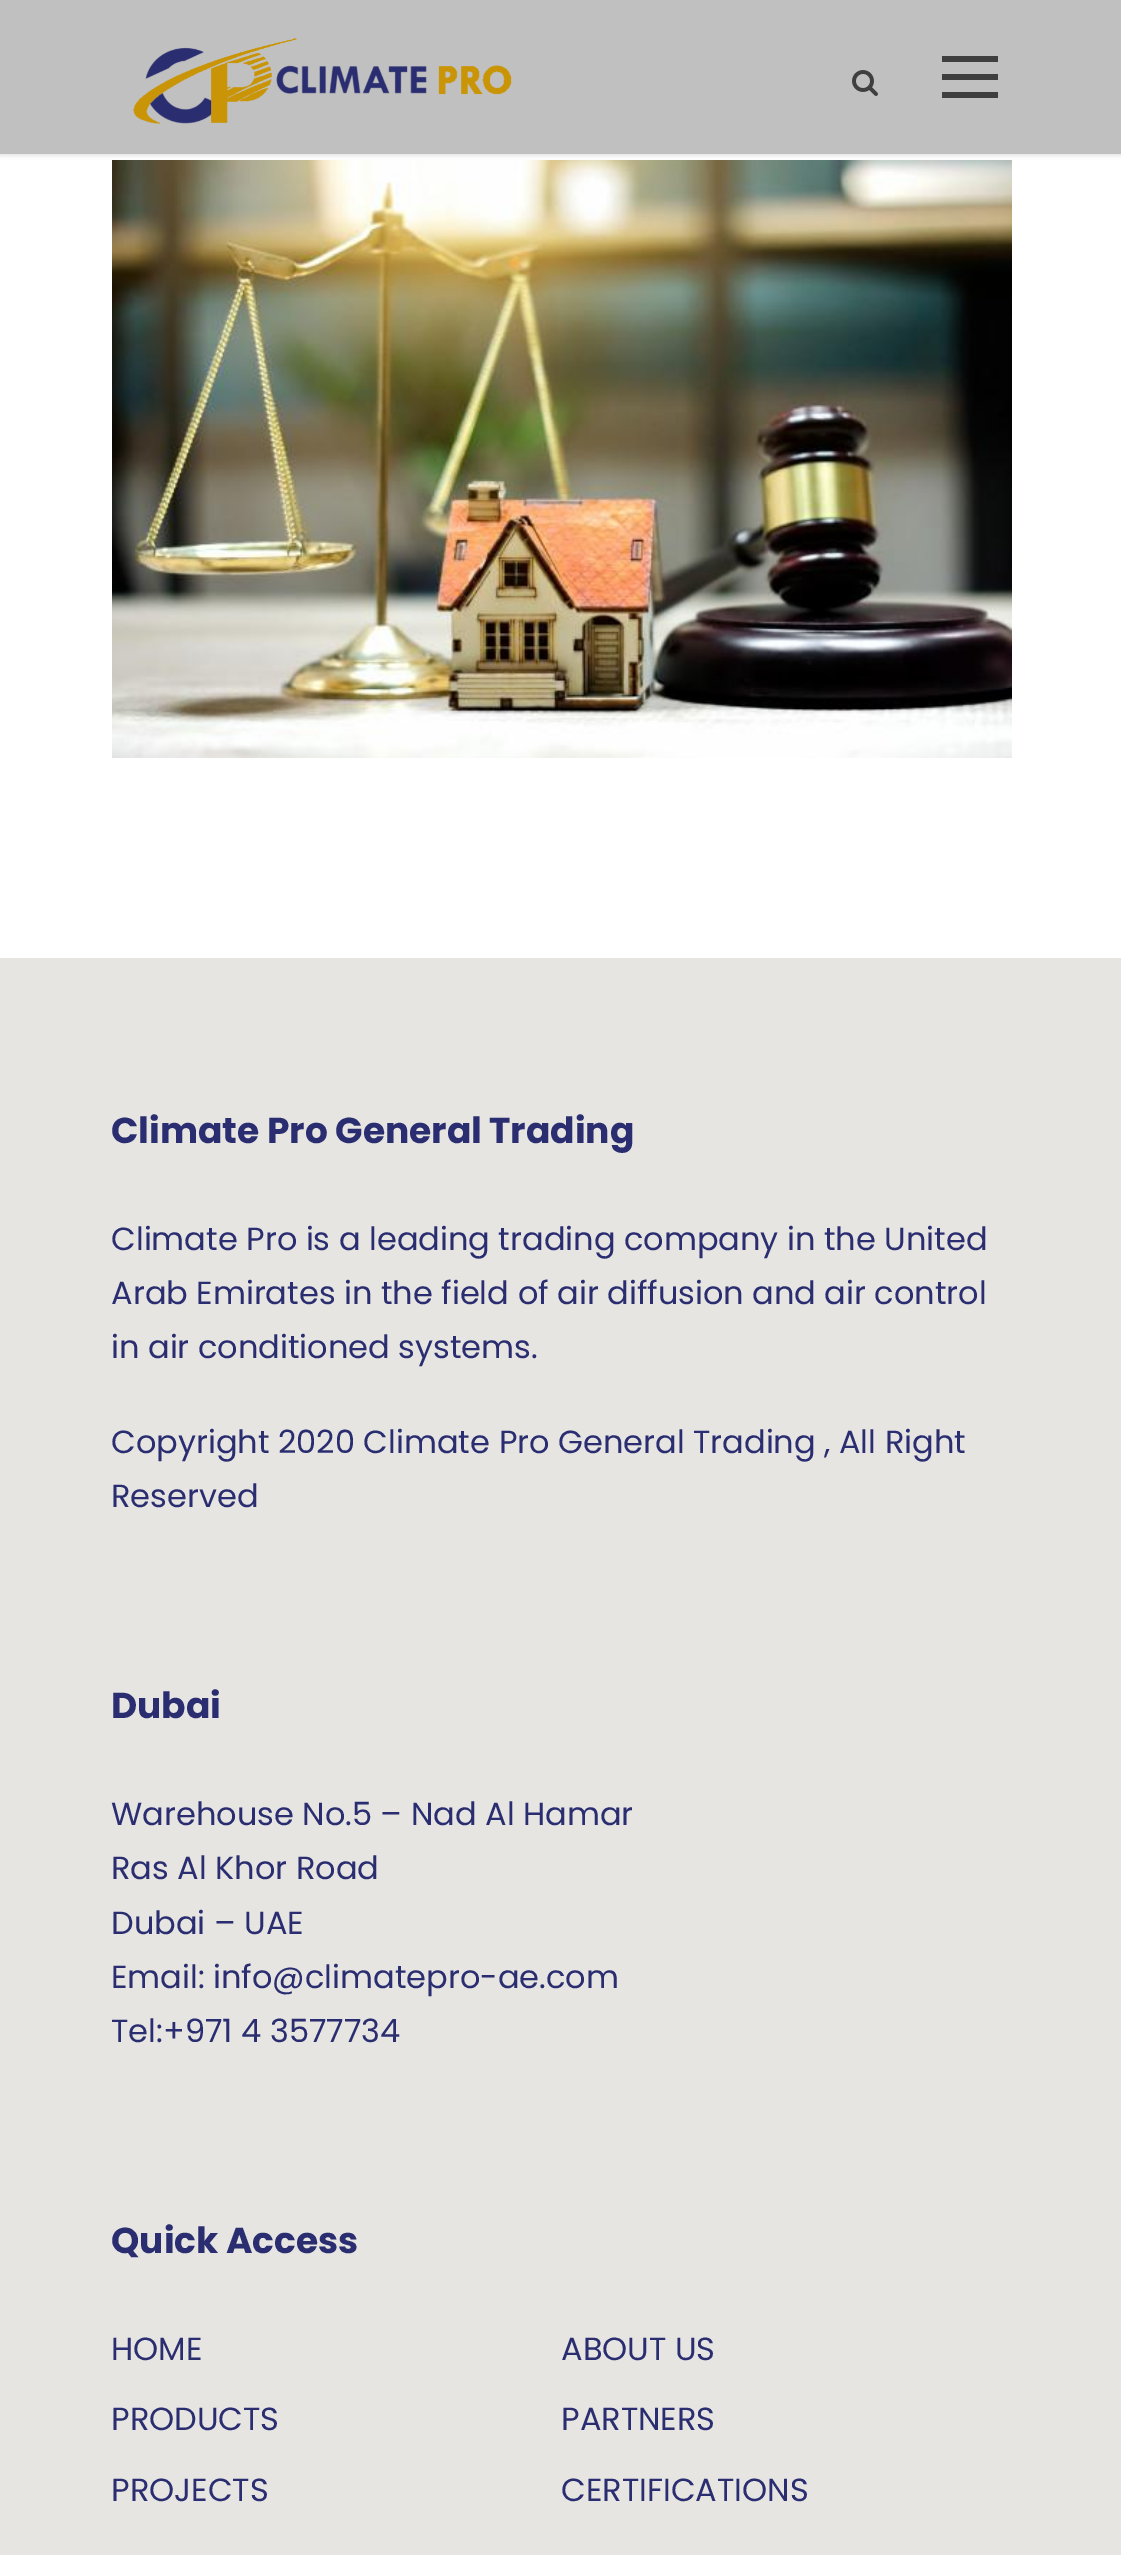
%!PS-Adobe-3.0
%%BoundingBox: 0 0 1121 2555
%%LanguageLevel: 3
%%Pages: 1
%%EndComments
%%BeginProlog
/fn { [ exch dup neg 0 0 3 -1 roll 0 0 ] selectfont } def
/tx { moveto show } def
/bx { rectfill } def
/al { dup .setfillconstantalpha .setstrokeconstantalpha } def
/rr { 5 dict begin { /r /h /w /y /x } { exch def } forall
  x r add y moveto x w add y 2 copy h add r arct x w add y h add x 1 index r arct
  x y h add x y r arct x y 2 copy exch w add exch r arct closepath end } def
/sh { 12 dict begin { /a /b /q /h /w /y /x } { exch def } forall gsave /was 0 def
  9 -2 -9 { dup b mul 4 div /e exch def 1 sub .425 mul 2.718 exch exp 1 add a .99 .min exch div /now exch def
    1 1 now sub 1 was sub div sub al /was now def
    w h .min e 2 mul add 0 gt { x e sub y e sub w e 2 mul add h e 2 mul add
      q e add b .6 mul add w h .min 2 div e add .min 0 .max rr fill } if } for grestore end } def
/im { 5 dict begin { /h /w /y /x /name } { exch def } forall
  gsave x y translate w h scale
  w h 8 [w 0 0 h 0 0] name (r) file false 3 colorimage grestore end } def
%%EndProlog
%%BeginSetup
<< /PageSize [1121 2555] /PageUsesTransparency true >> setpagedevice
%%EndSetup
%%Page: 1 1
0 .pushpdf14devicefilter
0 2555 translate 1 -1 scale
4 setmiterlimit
1 setgray
0 0 1121 2555 bx
(image2.raw) 112 160 900 598 im
0 setgray
0 2 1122 154 0 2 0.1 sh
0.753 setgray
0 0 1121 154 bx
(image0.raw) 133 38 379 87 im
(image1.raw) 852 70 26 26 im
0.247 setgray
942 56 56 6 bx
942 74 56 6 bx
942 92 56 6 bx
0.902 0.898 0.886 setrgbcolor
0 958 1121 1597 bx
/Poppins-Bold 36 fn
0.165 0.18 0.439 setrgbcolor
(Climate Pro General Trading) 111 1143 tx
/Poppins-Regular 32 fn
(Climate Pro is a leading trading company in the United) 111 1250 tx
(Arab Emirates in the field of air diffusion and air control) 111 1304 tx
(in air conditioned systems.) 111 1358 tx
(Copyright 2020 Climate Pro General Trading , All Right) 111 1453 tx
(Reserved) 111 1507 tx
/Poppins-Bold 36 fn
(Dubai) 111 1718 tx
/Poppins-Regular 32 fn
(Warehouse No.5 – Nad Al Hamar) 111 1825 tx
(Ras Al Khor Road) 111 1879 tx
(Dubai – UAE) 111 1934 tx
(Email: info@climatepro-ae.com) 111 1988 tx
(Tel:+971 4 3577734) 111 2042 tx
/Poppins-Bold 36 fn
(Quick Access) 111 2253 tx
/Poppins-Regular 32 fn
(HOME) 111 2360 tx
(ABOUT US) 561 2360 tx
(PRODUCTS) 111 2430 tx
(PARTNERS) 561 2430 tx
(PROJECTS) 111 2501 tx
(CERTIFICATIONS) 561 2501 tx
.poppdf14devicefilter showpage
%%EOF
